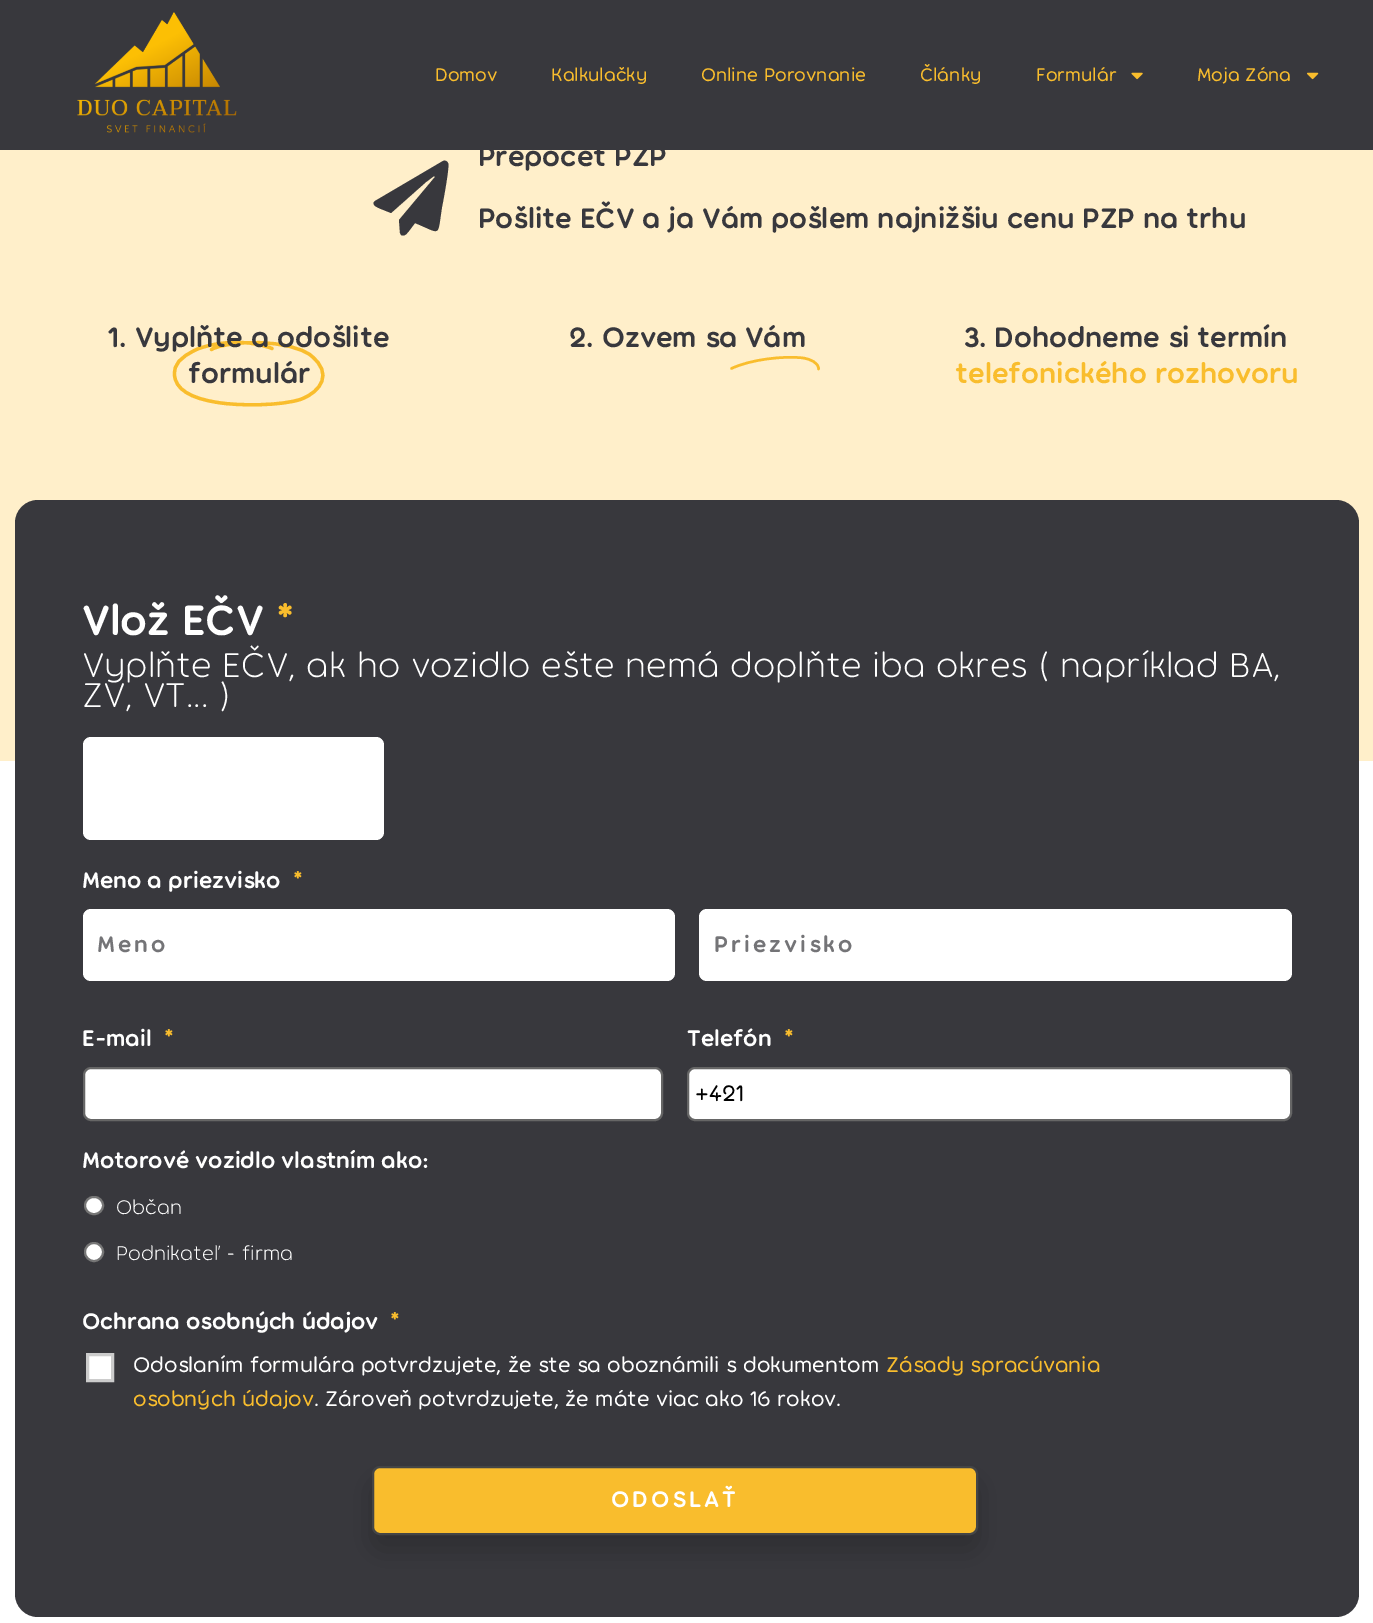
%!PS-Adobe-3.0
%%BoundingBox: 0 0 1373 1623
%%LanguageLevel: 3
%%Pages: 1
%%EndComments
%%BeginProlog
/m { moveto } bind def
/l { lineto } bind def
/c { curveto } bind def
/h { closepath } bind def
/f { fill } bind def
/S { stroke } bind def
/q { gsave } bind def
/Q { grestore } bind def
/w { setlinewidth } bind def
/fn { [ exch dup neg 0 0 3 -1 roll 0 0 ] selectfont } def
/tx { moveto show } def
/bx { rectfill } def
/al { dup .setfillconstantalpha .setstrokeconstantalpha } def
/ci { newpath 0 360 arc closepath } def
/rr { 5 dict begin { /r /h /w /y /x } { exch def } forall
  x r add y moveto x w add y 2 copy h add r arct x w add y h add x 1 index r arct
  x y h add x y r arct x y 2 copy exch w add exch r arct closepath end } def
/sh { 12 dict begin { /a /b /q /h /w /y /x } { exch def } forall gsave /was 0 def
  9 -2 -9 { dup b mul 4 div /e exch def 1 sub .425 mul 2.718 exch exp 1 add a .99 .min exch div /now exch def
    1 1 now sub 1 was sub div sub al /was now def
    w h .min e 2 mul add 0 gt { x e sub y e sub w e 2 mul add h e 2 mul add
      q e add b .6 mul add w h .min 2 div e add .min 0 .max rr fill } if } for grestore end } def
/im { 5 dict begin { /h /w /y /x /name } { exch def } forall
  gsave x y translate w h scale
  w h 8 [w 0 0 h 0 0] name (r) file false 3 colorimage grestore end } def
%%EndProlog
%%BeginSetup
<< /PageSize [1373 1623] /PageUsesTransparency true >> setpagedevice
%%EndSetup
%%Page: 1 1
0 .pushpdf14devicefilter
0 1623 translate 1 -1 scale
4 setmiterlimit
1 setgray
0 0 1373 1623 bx
0.22 0.22 0.239 setrgbcolor
0 0 1373 150 bx
(image0.raw) 77 12 160 121 im
/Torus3-Regular 19.5 fn
0.976 0.741 0.176 setrgbcolor
(Domov) 435 81 tx
(Kalkulačky) 551 81 tx
(Online Porovnanie) 701 81 tx
(Články) 920 81 tx
(Formulár) 1036 81 tx
(image1.raw) 1131 72 12 8 im
(Moja Zóna) 1197 81 tx
(image2.raw) 1307 72 12 8 im
1 0.937 0.792 setrgbcolor
0 150 1373 611 bx
0.22 0.22 0.239 setrgbcolor
443 161 m 445 160 447 161 448 163 c 450 165 443 202 442 207 c 437 238 442 234 415 223 c 409 231 l 407 233 405 237 401 235 c 400 233 l 399 220 l 435 177 l 434 175 433 177 426 182 c 391 213 l 381 209 l 379 208 370 205 375 201 c h f
/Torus-Regular 30 fn
(Prepočet PZP) 478 166 tx
(Pošlite EČV a ja Vám pošlem najnižšiu cenu PZP na trhu) 478 228 tx
0.976 0.741 0.176 setrgbcolor
3.3 w
1 setlinecap
1 setlinejoin
272 348.5 m 242.5 337 209 344 196.5 349.5 c 179.5 357.5 174 364.5 174.5 374.5 c 175 389 190.5 398.5 218 402.5 c 238 406 282.5 406 301.5 399 c 321 391.5 333 373.5 311.5 356 c 290.5 338.5 227.5 340 211.5 349.5 c S
0.22 0.22 0.239 setrgbcolor
(1. Vyplňte a odošlite) 108 347 tx
(formulár) 188 383 tx
(2. Ozvem sa Vám) 569 347 tx
0.976 0.741 0.176 setrgbcolor
2.5 w
731.5 368.5 m 750 359.5 784.5 355.5 803 358 c 810.5 359 819 363 818.5 369 c S
0.22 0.22 0.239 setrgbcolor
(3. Dohodneme si termín) 963 347 tx
0.976 0.741 0.176 setrgbcolor
(telefonického rozhovoru) 955 383 tx
0.22 0.22 0.239 setrgbcolor
15 500 1344 1117 23 rr f
/Torus-Regular 45 fn
1 setgray
(Vlož EČV) 82 635 tx
0.976 0.741 0.176 setrgbcolor
(*) 276 635 tx
/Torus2-Regular 36.6 fn
1 setgray
(Vyplňte EČV, ak ho vozidlo ešte nemá doplňte iba okres \( napríklad BA,) 82 677 tx
(ZV, VT... \)) 82 707 tx
83 737 301 103 8 rr f
/Torus-Regular 24 fn
(Meno a priezvisko) 82 888 tx
0.976 0.741 0.176 setrgbcolor
(*) 293 888 tx
1 setgray
83 909 592 72 8 rr f
0.455 0.455 0.467 setrgbcolor
97 952 m 3 0 (Meno) ashow
1 setgray
699 909 593 72 8 rr f
0.455 0.455 0.467 setrgbcolor
714 952 m 3 0 (Priezvisko) ashow
1 setgray
(E-mail) 82 1046 tx
0.976 0.741 0.176 setrgbcolor
(*) 164 1046 tx
1 setgray
84 1068 578 52 7 rr q f Q
0.4 setgray
2 w
0 setlinecap
0 setlinejoin
S
1 setgray
(Telefón) 687 1046 tx
0.976 0.741 0.176 setrgbcolor
(*) 784 1046 tx
1 setgray
688 1068 603 52 7 rr q f Q
0.4 setgray
S
/Torus3-Regular 24 fn
0 setgray
(+421) 695 1101 tx
/Torus-Regular 24 fn
1 setgray
(Motorové vozidlo vlastním ako:) 82 1168 tx
85 1197 18 17 8.5 rr q f Q
0.463 setgray
S
/Torus2-Regular 21 fn
1 setgray
(Občan) 116 1214 tx
94 1252 9 ci q f Q
0.463 setgray
S
1 setgray
(Podnikateľ - firma) 116 1260 tx
/Torus-Regular 24 fn
(Ochrana osobných údajov) 82 1329 tx
0.976 0.741 0.176 setrgbcolor
(*) 390 1329 tx
1 setgray
87.5 1354.5 m 112.5 1354.5 l 112.5 1380.5 l 87.5 1380.5 l h q f Q
0.8 setgray
3 w
S
/Torus3-Regular 22.5 fn
1 setgray
(Odoslaním formulára potvrdzujete, že ste sa oboznámili s dokumentom) 133 1372 tx
0.976 0.741 0.176 setrgbcolor
(Zásady spracúvania) 886 1372 tx
(osobných údajov) 133 1406 tx
1 setgray
(. Zároveň potvrdzujete, že máte viac ako 16 rokov.) 314 1406 tx
0 setgray
372 1481 606 69 8 15 0.2 sh
0.976 0.741 0.176 setrgbcolor
373 1467 604 67 7 rr q f Q
0.267 0.271 0.275 setrgbcolor
2 w
S
/Torus-Regular 24 fn
1 setgray
611 1507 m 3 0 (ODOSLAŤ) ashow
.poppdf14devicefilter showpage
%%EOF
